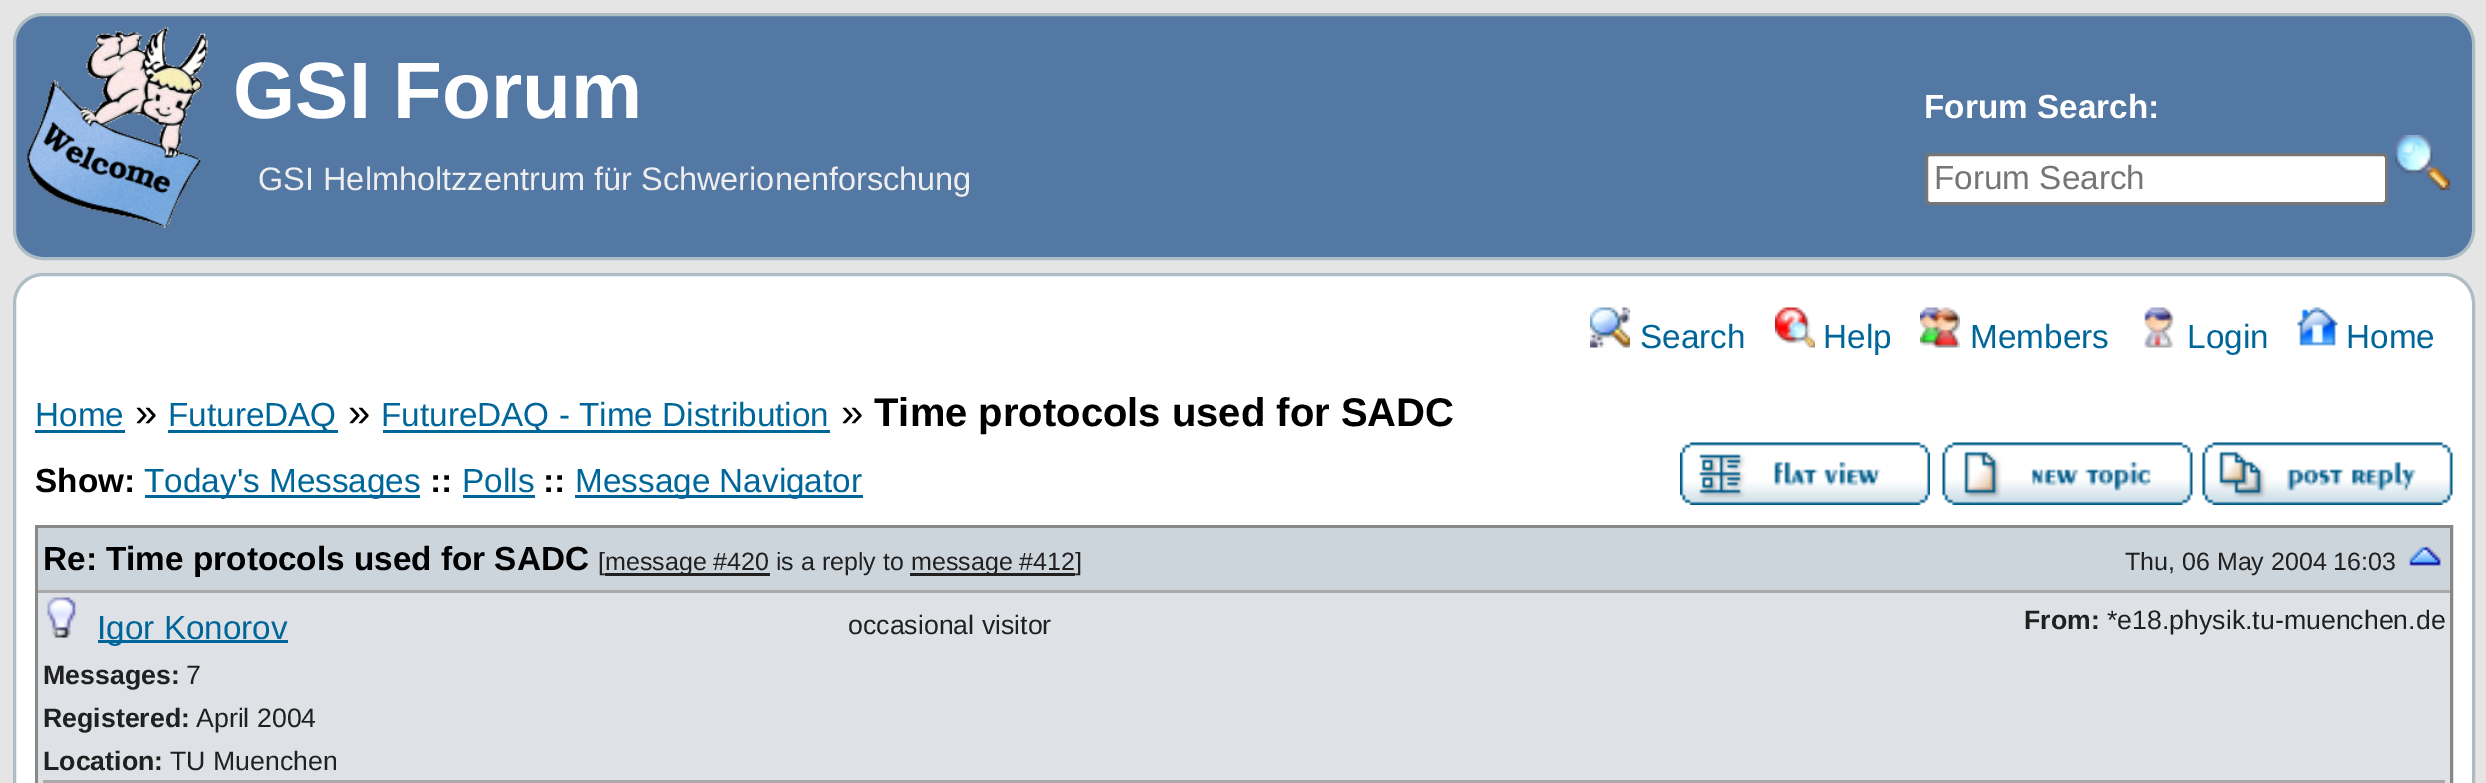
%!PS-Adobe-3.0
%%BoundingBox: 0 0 2486 783
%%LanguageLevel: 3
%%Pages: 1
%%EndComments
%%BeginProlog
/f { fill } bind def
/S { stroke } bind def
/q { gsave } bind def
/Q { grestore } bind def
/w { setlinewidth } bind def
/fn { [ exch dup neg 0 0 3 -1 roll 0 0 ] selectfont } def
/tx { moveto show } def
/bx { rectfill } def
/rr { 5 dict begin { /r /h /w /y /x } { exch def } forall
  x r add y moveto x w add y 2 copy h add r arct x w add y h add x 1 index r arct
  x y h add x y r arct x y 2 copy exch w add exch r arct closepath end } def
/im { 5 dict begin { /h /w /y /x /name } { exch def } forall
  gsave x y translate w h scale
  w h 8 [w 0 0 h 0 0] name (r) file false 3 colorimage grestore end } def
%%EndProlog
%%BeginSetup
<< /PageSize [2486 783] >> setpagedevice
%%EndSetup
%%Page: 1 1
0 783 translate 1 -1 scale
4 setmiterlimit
0.898 setgray
0 0 2486 783 bx
0.329 0.471 0.643 setrgbcolor
14.5 14.5 2459 244 28.5 rr q f Q
0.682 0.741 0.769 setrgbcolor
3 w
S
(image0.raw) 27 27 181 201 im
/LiberationSans-Bold 80 fn
1 setgray
(GSI Forum) 233 118 tx
/LiberationSans-Bold 33.3 fn
(Forum Search:) 1924 118 tx
1926.5 154.5 460 49 3.5 rr q f Q
0.463 setgray
S
/LiberationSans-Regular 33.3 fn
0.459 setgray
(Forum Search) 1934 189 tx
(image1.raw) 2395 135 55 55 im
/LiberationSans-Regular 32.5 fn
0.933 setgray
(GSI Helmholtzzentrum für Schwerionenforschung) 258 190 tx
1 setgray
14.5 274.5 2459 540 28.5 rr q f Q
0.682 0.741 0.769 setrgbcolor
S
(image2.raw) 1590 307 40 41 im
/LiberationSans-Regular 33.3 fn
0 0.4 0.6 setrgbcolor
(Search) 1640 348 tx
(image3.raw) 1775 307 40 41 im
(Help) 1823 348 tx
(image4.raw) 1920 307 40 41 im
(Members) 1970 348 tx
(image5.raw) 2144 307 30 41 im
(Login) 2187 348 tx
(image6.raw) 2297 307 41 39 im
(Home) 2346 348 tx
(Home) 35 426 tx
35 430 90 3 bx
/LiberationSans-Regular 40 fn
0 setgray
(») 135 426 tx
0 0.4 0.6 setrgbcolor
168 430 170 3 bx
/LiberationSans-Regular 33.3 fn
(FutureDAQ) 168 426 tx
/LiberationSans-Regular 40 fn
0 setgray
(») 348 426 tx
0 0.4 0.6 setrgbcolor
383 430 447 3 bx
/LiberationSans-Regular 33.3 fn
(FutureDAQ - Time Distribution) 381 426 tx
/LiberationSans-Regular 40 fn
0 setgray
(») 841 426 tx
/LiberationSans-Bold 40 fn
(Time protocols used for SADC) 874 426 tx
/LiberationSans-Bold 33.3 fn
(Show:) 35 492 tx
0 0.4 0.6 setrgbcolor
145 495 275 3 bx
/LiberationSans-Regular 33.3 fn
(Today's Messages) 144 492 tx
/LiberationSans-Bold 33.3 fn
0 setgray
(::) 430 492 tx
/LiberationSans-Regular 33.3 fn
0 0.4 0.6 setrgbcolor
(Polls) 462 492 tx
463 495 72 3 bx
/LiberationSans-Bold 33.3 fn
0 setgray
(::) 543 492 tx
0 0.4 0.6 setrgbcolor
575 495 288 3 bx
/LiberationSans-Regular 33.3 fn
(Message Navigator) 575 492 tx
(image7.raw) 1680 442 250 63 im
(image8.raw) 1942 442 251 63 im
(image9.raw) 2202 442 251 63 im
0.533 setgray
36.5 526.5 2415 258 rectstroke
0.8 0.831 0.863 setrgbcolor
38 528 2412 62 bx
0.667 setgray
38 590 2412 3 bx
/LiberationSans-Bold 33.3 fn
0 setgray
(Re: Time protocols used for SADC) 43 570 tx
/LiberationSans-Regular 25 fn
0.125 setgray
([) 598 570 tx
605 573 165 3 bx
(message #420 is a reply to) 605 570 tx
910 573 165 3 bx
(message #412]) 911 570 tx
(Thu, 06 May 2004 16:03) 2125 570 tx
(image10.raw) 2409 546 32 20 im
0.871 0.886 0.902 setrgbcolor
38 593 2412 190 bx
0.667 setgray
43 780 2402 3 bx
(image11.raw) 46 597 30 41 im
0 0.4 0.6 setrgbcolor
98 640 190 3 bx
/LiberationSans-Regular 33.3 fn
(Igor Konorov) 97 639 tx
/LiberationSans-Bold 26.7 fn
0.125 setgray
(Messages:) 43 684 tx
/LiberationSans-Regular 26.7 fn
(7) 186 684 tx
/LiberationSans-Bold 26.7 fn
(Registered:) 43 727 tx
/LiberationSans-Regular 26.7 fn
(April 2004) 196 727 tx
/LiberationSans-Bold 26.7 fn
(Location:) 43 770 tx
/LiberationSans-Regular 26.7 fn
(TU Muenchen) 170 770 tx
(occasional visitor) 848 634 tx
/LiberationSans-Bold 26.7 fn
(From:) 2024 629 tx
/LiberationSans-Regular 26.7 fn
(*e18.physik.tu-muenchen.de) 2107 629 tx
showpage
%%EOF
